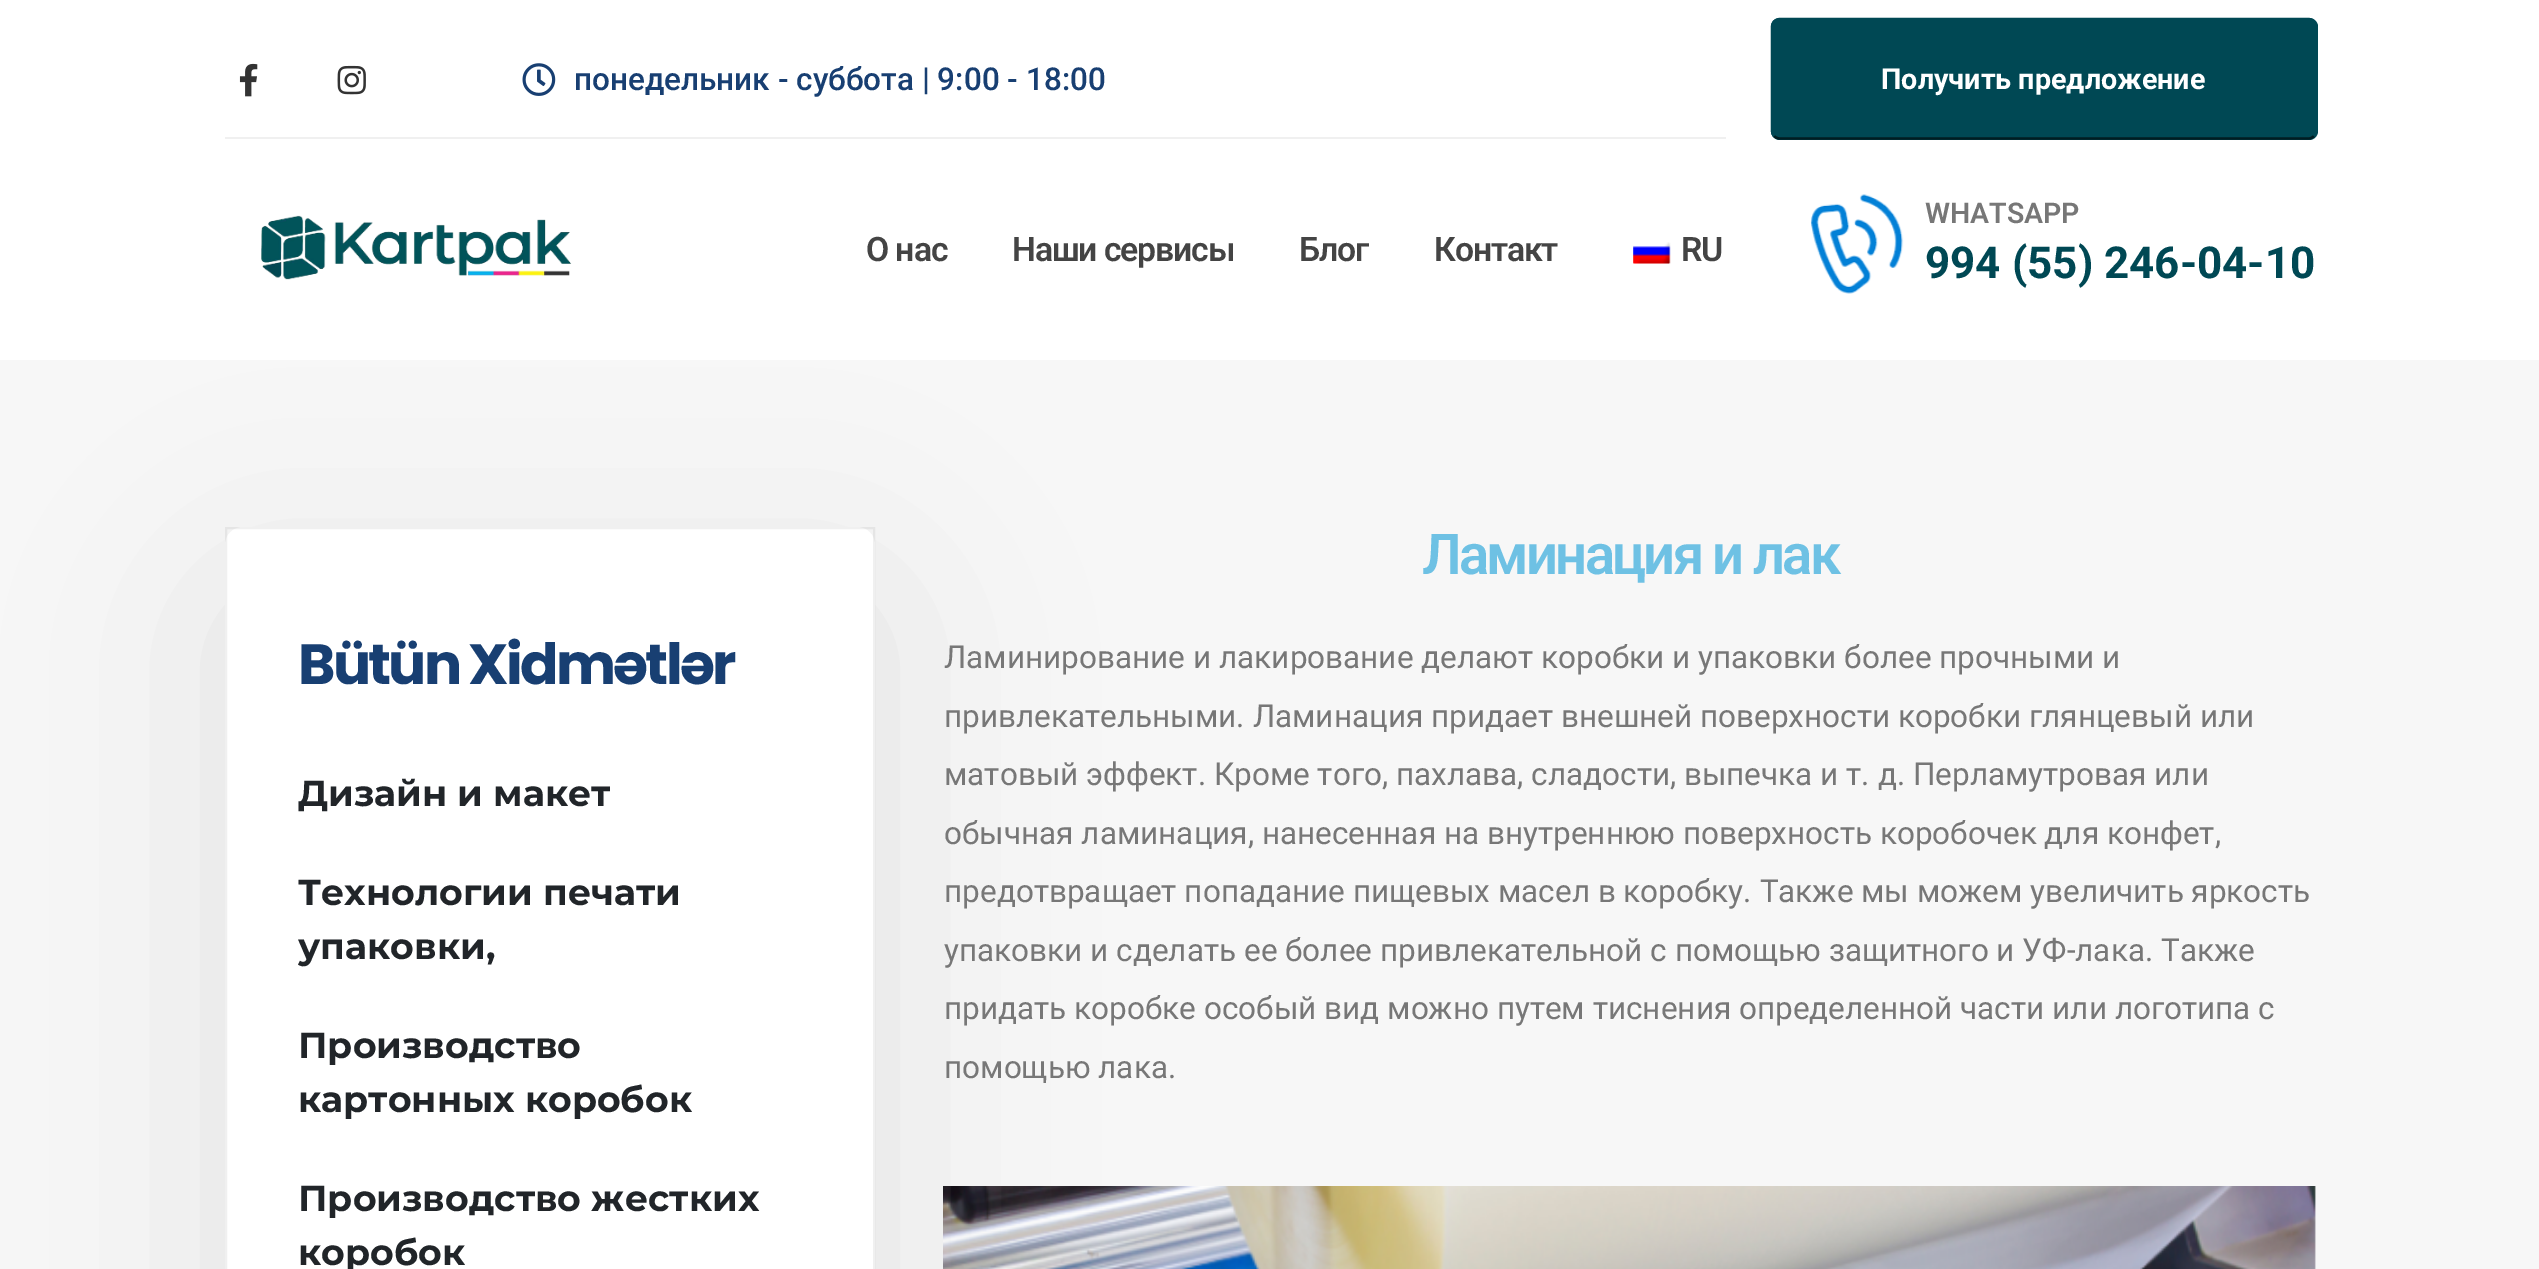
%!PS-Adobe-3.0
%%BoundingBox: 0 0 2539 1269
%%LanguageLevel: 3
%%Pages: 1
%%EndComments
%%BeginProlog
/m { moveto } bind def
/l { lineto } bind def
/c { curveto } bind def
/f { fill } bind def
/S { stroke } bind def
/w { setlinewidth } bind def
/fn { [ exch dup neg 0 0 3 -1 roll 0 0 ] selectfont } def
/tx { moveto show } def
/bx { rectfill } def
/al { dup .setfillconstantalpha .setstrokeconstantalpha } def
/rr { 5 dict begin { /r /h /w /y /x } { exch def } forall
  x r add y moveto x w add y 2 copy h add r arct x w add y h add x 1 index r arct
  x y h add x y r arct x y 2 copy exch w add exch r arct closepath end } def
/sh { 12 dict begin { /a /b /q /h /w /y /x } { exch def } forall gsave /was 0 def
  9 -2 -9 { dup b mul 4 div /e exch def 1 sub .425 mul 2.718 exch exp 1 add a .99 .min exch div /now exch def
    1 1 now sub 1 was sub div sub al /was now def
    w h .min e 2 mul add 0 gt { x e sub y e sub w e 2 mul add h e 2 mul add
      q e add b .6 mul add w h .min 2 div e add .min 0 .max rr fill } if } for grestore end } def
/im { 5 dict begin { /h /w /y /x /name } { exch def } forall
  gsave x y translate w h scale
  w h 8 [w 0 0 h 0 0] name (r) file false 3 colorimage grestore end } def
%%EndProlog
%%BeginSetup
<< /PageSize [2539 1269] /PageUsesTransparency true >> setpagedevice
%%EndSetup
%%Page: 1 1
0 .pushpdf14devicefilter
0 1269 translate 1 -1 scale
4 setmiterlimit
1 setgray
0 0 2539 1269 bx
0.941 setgray
225 137 1501 2 bx
(image0.raw) 239 63 19 34 im
(image1.raw) 337 65 29 30 im
(image2.raw) 522 63 34 33 im
/Roboto-Medium 31.5 fn
0.094 0.247 0.447 setrgbcolor
(понедельник - суббота | 9:00 - 18:00) 574 90 tx
0 0.282 0.329 setrgbcolor
1771 18 547 122 9 rr f
0 0.114 0.133 setrgbcolor
2.2 w
2314 136 m 2312.5 137.5 2310.5 138.5 2308.5 138.5 c 1780 138.5 l 1777.5 138.5 1775.5 137.5 1774 136 c S
0 0.282 0.329 setrgbcolor
1774 136 m 1772.5 134.5 1772 132.5 1772 130.5 c 1772 27 l 1772 25 1772.5 23 1774 21.5 c 1775.5 20 1777.5 19 1780 19 c 2308.5 19 l 2310.5 19 2312.5 20 2314 21.5 c 2315.5 23 2316.5 25 2316.5 27 c 2316.5 130.5 l 2316.5 132.5 2315.5 134.5 2314 136 c S
/Roboto-Bold 28.75 fn
1 setgray
(Получить предложение) 1881 89 tx
(image3.raw) 261 215 311 65 im
/Roboto-SemiBold 33.75 fn
0.267 setgray
866 261 m -1.1 0 (О нас) ashow
1012 261 m -1.1 0 (Наши сервисы) ashow
1299 261 m -1.1 0 (Блог) ashow
1434 261 m -1.1 0 (Контакт) ashow
(image4.raw) 1633 242 38 22 im
(image5.raw) 1633 243 38 21 im
1681 261 m -1.1 0 (RU) ashow
(image6.raw) 1810 194 94 100 im
/Roboto-SemiBold 28.5 fn
0.467 setgray
(WHATSAPP) 1925 223 tx
/Roboto-Bold 44 fn
0 0.282 0.329 setrgbcolor
(994 \(55\) 246-04-10) 1925 278 tx
0.969 setgray
0 360 2539 909 bx
(image7.raw) 943 1186 1373 83 im
0.733 setgray
225 594 650 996 18 101 0.33 sh
1 setgray
225 527 650 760 18 rr f
0.06 al
0 setgray
2 w
226 528 648 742 rectstroke
/Poppins-Bold 56.75 fn
1 al
0.094 0.247 0.447 setrgbcolor
298 684 m -2.8 0 (Bütün Xidmətlər) ashow
/Montserrat-Bold 36.25 fn
0.129 0.145 0.161 setrgbcolor
(Дизайн и макет) 298 806 tx
(Технологии печати) 298 905 tx
(упаковки,) 298 959 tx
(Производство) 298 1058 tx
(картонных коробок) 298 1112 tx
(Производство жестких) 298 1211 tx
(коробок) 298 1265 tx
/Roboto-SemiBold 56.25 fn
0.431 0.757 0.894 setrgbcolor
1422 574 m -2.75 0 (Ламинация и лак) ashow
/Roboto-Regular 31.5 fn
0.467 setgray
(Ламинирование и лакирование делают коробки и упаковки более прочными и) 944 668 tx
(привлекательными. Ламинация придает внешней поверхности коробки глянцевый или) 944 727 tx
(матовый эффект. Кроме того, пахлава, сладости, выпечка и т. д. Перламутровая или) 944 785 tx
(обычная ламинация, нанесенная на внутреннюю поверхность коробочек для конфет,) 944 844 tx
(предотвращает попадание пищевых масел в коробку. Также мы можем увеличить яркость) 944 902 tx
(упаковки и сделать ее более привлекательной с помощью защитного и УФ-лака. Также) 944 961 tx
(придать коробке особый вид можно путем тиснения определенной части или логотипа с) 944 1019 tx
(помощью лака.) 944 1078 tx
.poppdf14devicefilter showpage
%%EOF
